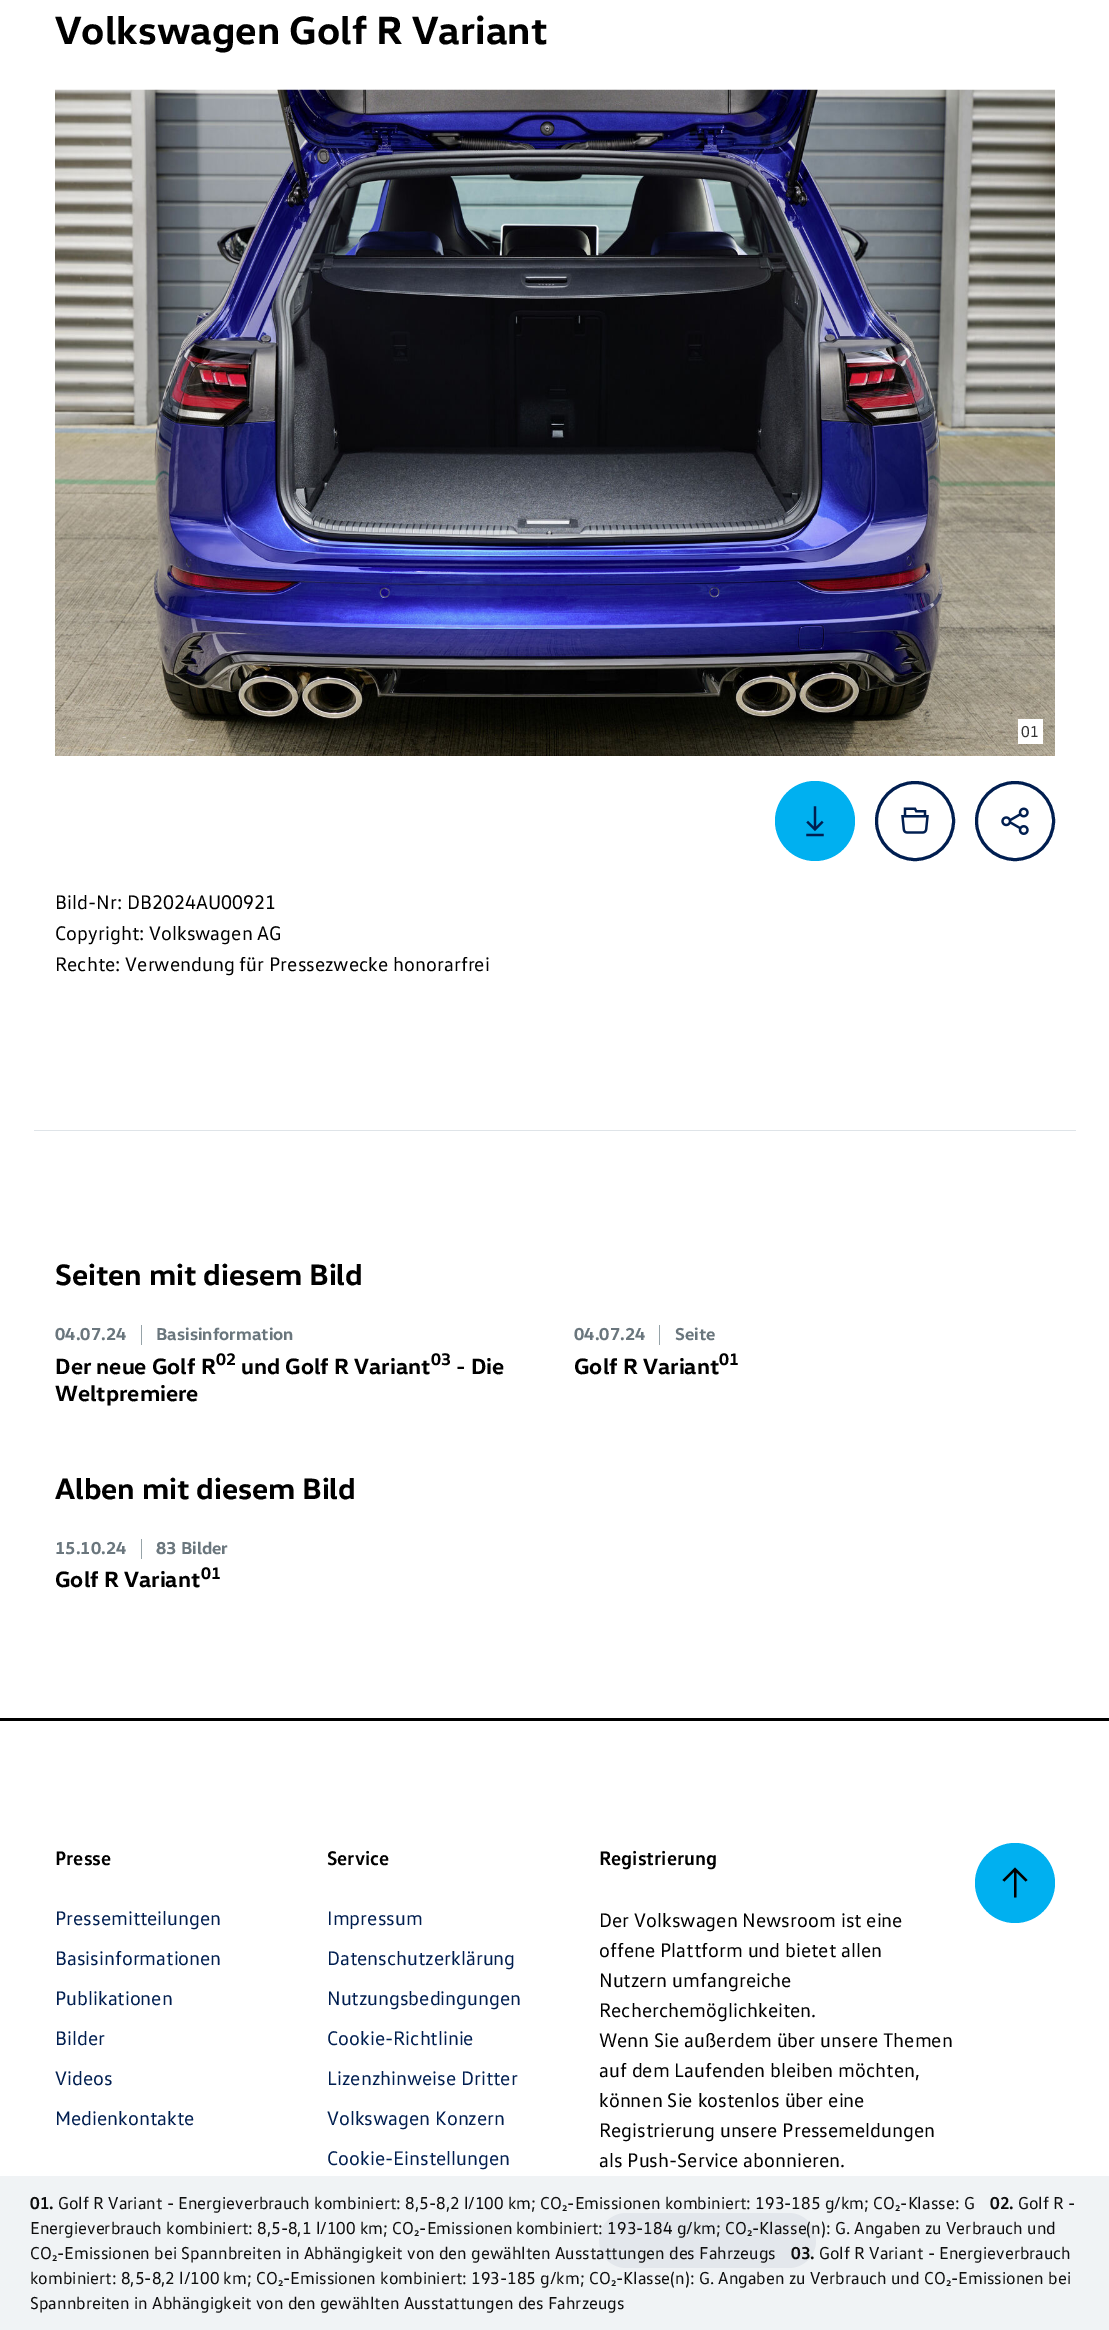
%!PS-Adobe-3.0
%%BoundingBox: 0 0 1109 2330
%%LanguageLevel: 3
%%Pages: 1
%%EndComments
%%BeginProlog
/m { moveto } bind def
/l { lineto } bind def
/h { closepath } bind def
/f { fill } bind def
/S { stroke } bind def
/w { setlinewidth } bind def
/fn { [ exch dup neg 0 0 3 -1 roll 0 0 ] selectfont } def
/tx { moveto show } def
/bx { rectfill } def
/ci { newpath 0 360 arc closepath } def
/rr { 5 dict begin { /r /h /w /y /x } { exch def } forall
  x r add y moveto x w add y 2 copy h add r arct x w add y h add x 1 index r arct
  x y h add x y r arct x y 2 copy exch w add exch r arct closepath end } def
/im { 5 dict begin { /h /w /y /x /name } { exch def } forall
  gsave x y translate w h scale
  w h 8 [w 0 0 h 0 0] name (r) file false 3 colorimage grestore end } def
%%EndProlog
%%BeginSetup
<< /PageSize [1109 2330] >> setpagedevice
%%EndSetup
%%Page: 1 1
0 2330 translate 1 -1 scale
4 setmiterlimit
1 setgray
0 0 1109 2330 bx
0.941 0.953 0.961 setrgbcolor
0 2176 1109 154 bx
/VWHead-Bold 40 fn
0 setgray
(Volkswagen Golf R Variant) 55 44 tx
(image0.raw) 55 89 1000 667 im
1 setgray
1018 719 25 25 bx
/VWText-Regular 16 fn
0.2 setgray
(01) 1021 737 tx
0 0.69 0.941 setrgbcolor
815 821 40 ci f
(image1.raw) 806 806 18 31 im
0 0.118 0.314 setrgbcolor
3 w
915 821 38.5 ci S
(image2.raw) 901 807 28 27 im
1015 821 38.5 ci S
(image3.raw) 1001 807 28 28 im
/VWText-Regular 20 fn
0 setgray
(Bild-Nr: DB2024AU00921) 55 909 tx
(Copyright: Volkswagen AG) 55 940 tx
(Rechte: Verwendung für Pressezwecke honorarfrei) 55 971 tx
0.875 0.894 0.91 setrgbcolor
34 1130 1042 1 bx
/VWHead-Bold 30 fn
0 setgray
(Seiten mit diesem Bild) 55 1285 tx
/VWHead-Bold 17.5 fn
0.416 0.463 0.49 setrgbcolor
(04.07.24) 55 1340 tx
0.588 0.639 0.659 setrgbcolor
141 1325 1 20 bx
0.416 0.463 0.49 setrgbcolor
(Basisinformation) 156 1340 tx
/VWHead-Bold 22.5 fn
0 setgray
(Der neue Golf R) 55 1374 tx
/VWHead-Bold 17 fn
(02) 216 1365 tx
/VWHead-Bold 22.5 fn
(und Golf R Variant) 241 1374 tx
/VWHead-Bold 17 fn
(03) 431 1365 tx
/VWHead-Bold 22.5 fn
(- Die) 456 1374 tx
(Weltpremiere) 55 1401 tx
/VWHead-Bold 17.5 fn
0.416 0.463 0.49 setrgbcolor
(04.07.24) 574 1340 tx
0.588 0.639 0.659 setrgbcolor
659 1325 1 20 bx
0.416 0.463 0.49 setrgbcolor
(Seite) 675 1340 tx
/VWHead-Bold 22.5 fn
0 setgray
(Golf R Variant) 574 1374 tx
/VWHead-Bold 17 fn
(01) 719 1365 tx
/VWHead-Bold 30 fn
(Alben mit diesem Bild) 55 1499 tx
/VWHead-Bold 17.5 fn
0.416 0.463 0.49 setrgbcolor
(15.10.24) 55 1554 tx
0.588 0.639 0.659 setrgbcolor
141 1539 1 20 bx
0.416 0.463 0.49 setrgbcolor
(83 Bilder) 156 1554 tx
/VWHead-Bold 22.5 fn
0 setgray
(Golf R Variant) 55 1587 tx
/VWHead-Bold 17 fn
(01) 201 1579 tx
0 1718 1109 3 bx
/VWText-Bold 20 fn
(Presse) 55 1865 tx
/VWText-Regular 20 fn
0 0.118 0.314 setrgbcolor
(Pressemitteilungen) 55 1925 tx
(Basisinformationen) 55 1965 tx
(Publikationen) 55 2005 tx
(Bilder) 55 2045 tx
(Videos) 55 2085 tx
(Medienkontakte) 55 2125 tx
/VWText-Bold 20 fn
0 setgray
(Service) 327 1865 tx
/VWText-Regular 20 fn
0 0.118 0.314 setrgbcolor
(Impressum) 327 1925 tx
(Datenschutzerklärung) 327 1965 tx
(Nutzungsbedingungen) 327 2005 tx
(Cookie-Richtlinie) 327 2045 tx
(Lizenzhinweise Dritter) 327 2085 tx
(Volkswagen Konzern) 327 2125 tx
(Cookie-Einstellungen) 327 2165 tx
/VWText-Bold 20 fn
0 setgray
(Registrierung) 599 1865 tx
/VWText-Regular 20 fn
(Der Volkswagen Newsroom ist eine) 599 1927 tx
(offene Plattform und bietet allen) 599 1957 tx
(Nutzern umfangreiche) 599 1987 tx
(Recherchemöglichkeiten.) 599 2017 tx
(Wenn Sie außerdem über unsere Themen) 599 2047 tx
(auf dem Laufenden bleiben möchten,) 599 2077 tx
(können Sie kostenlos über eine) 599 2107 tx
(Registrierung unsere Pressemeldungen) 599 2137 tx
(als Push-Service abonnieren.) 599 2167 tx
0.89 0.906 0.925 setrgbcolor
599 2213 217 55 27.5 rr f
0 0.69 0.941 setrgbcolor
1015 1883 40 ci f
0 setgray
1014 1872 m 1004.5 1881.5 l 1002.5 1880 l 1015 1867.5 l 1027.5 1880 l 1025.5 1881.5 l 1016.5 1872.5 l 1016.5 1897.5 l 1014 1897.5 l h f
/VWText-Bold 17.5 fn
0.051 setgray
(01.) 30 2209 tx
/VWText-Regular 17.5 fn
(Golf R Variant - Energieverbrauch kombiniert: 8,5-8,2 l/100 km; CO₂-Emissionen kombiniert: 193-185 g/km; CO₂-Klasse: G) 58 2209 tx
/VWText-Bold 17.5 fn
(02.) 990 2209 tx
/VWText-Regular 17.5 fn
(Golf R -) 1018 2209 tx
(Energieverbrauch kombiniert: 8,5-8,1 l/100 km; CO₂-Emissionen kombiniert: 193-184 g/km; CO₂-Klasse\(n\): G. Angaben zu Verbrauch und) 30 2234 tx
(CO₂-Emissionen bei Spannbreiten in Abhängigkeit von den gewählten Ausstattungen des Fahrzeugs) 30 2259 tx
/VWText-Bold 17.5 fn
(03.) 791 2259 tx
/VWText-Regular 17.5 fn
(Golf R Variant - Energieverbrauch) 819 2259 tx
(kombiniert: 8,5-8,2 l/100 km; CO₂-Emissionen kombiniert: 193-185 g/km; CO₂-Klasse\(n\): G. Angaben zu Verbrauch und CO₂-Emissionen bei) 30 2284 tx
(Spannbreiten in Abhängigkeit von den gewählten Ausstattungen des Fahrzeugs) 30 2309 tx
showpage
%%EOF
